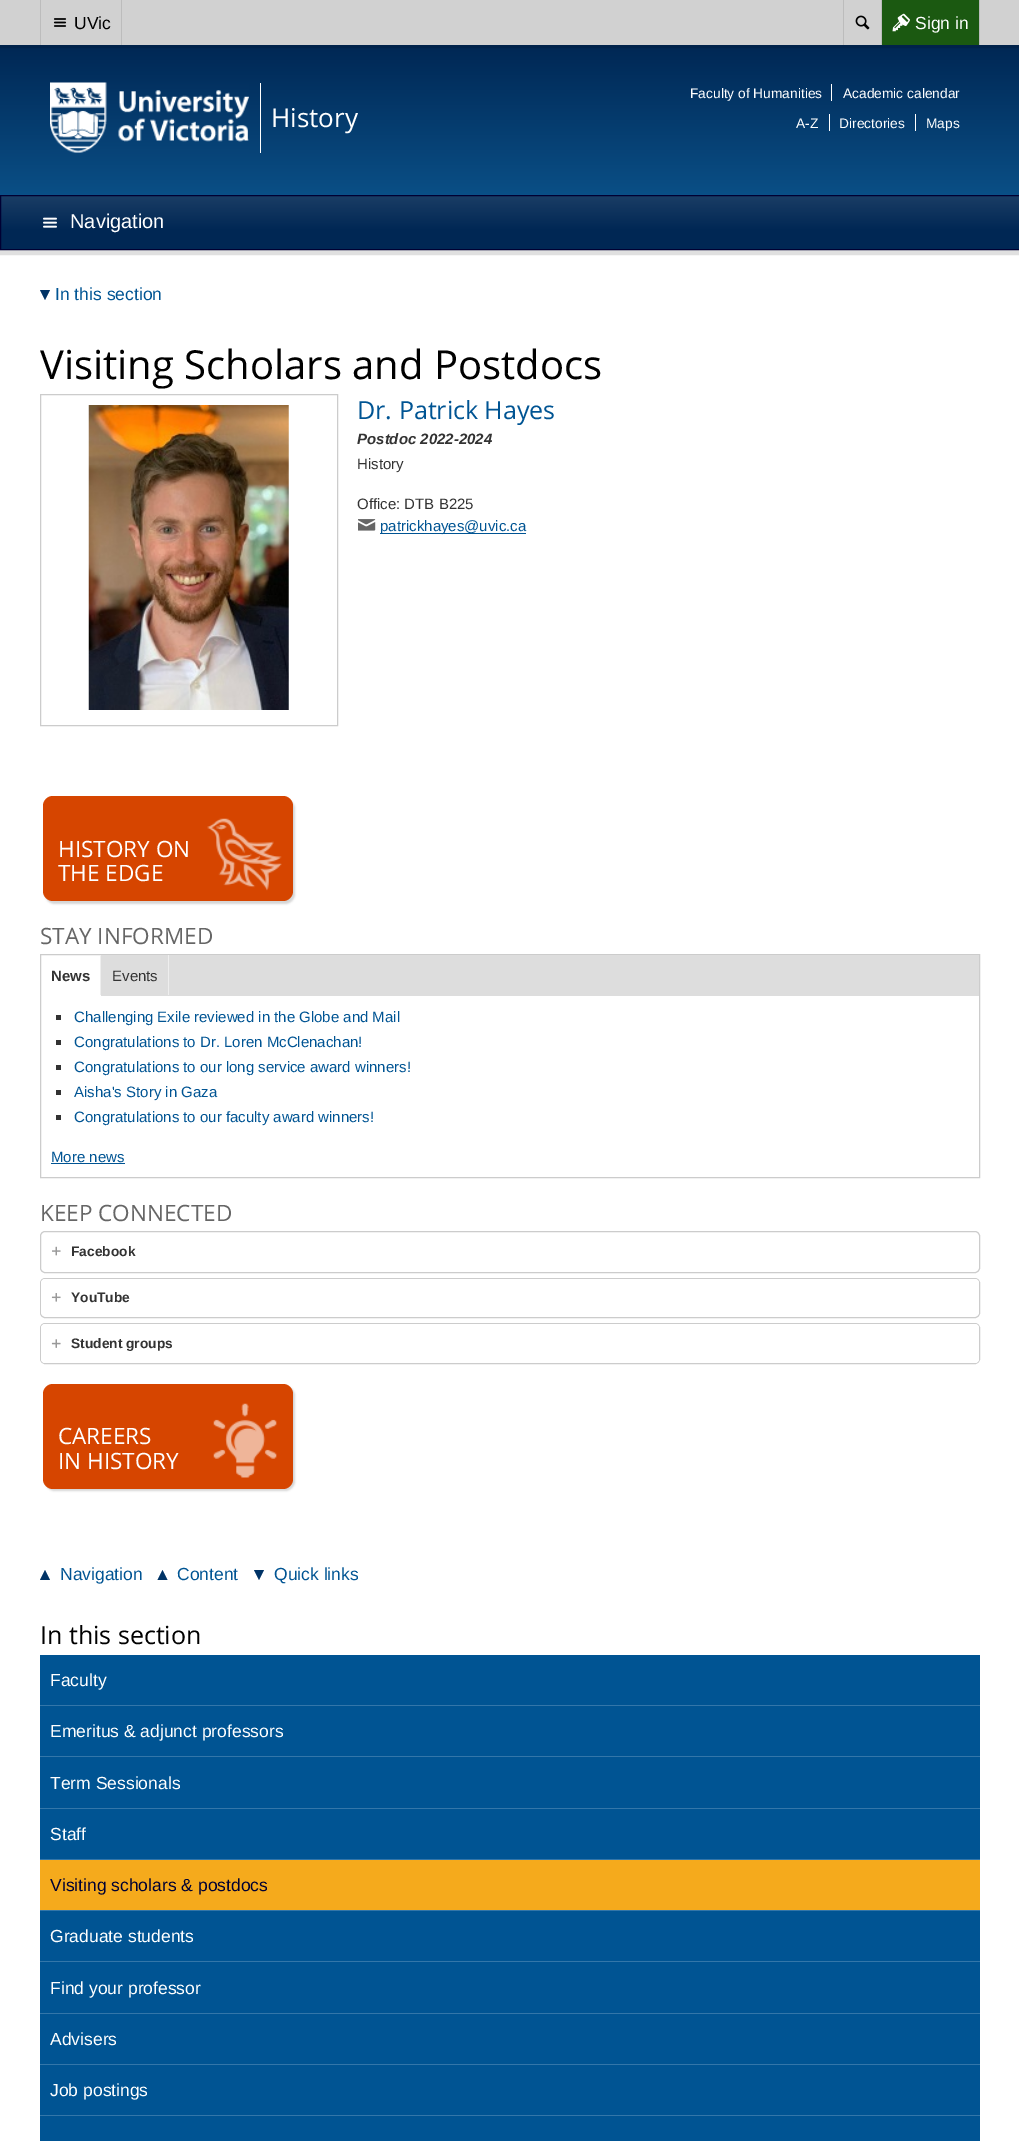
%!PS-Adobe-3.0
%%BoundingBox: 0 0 1019 2141
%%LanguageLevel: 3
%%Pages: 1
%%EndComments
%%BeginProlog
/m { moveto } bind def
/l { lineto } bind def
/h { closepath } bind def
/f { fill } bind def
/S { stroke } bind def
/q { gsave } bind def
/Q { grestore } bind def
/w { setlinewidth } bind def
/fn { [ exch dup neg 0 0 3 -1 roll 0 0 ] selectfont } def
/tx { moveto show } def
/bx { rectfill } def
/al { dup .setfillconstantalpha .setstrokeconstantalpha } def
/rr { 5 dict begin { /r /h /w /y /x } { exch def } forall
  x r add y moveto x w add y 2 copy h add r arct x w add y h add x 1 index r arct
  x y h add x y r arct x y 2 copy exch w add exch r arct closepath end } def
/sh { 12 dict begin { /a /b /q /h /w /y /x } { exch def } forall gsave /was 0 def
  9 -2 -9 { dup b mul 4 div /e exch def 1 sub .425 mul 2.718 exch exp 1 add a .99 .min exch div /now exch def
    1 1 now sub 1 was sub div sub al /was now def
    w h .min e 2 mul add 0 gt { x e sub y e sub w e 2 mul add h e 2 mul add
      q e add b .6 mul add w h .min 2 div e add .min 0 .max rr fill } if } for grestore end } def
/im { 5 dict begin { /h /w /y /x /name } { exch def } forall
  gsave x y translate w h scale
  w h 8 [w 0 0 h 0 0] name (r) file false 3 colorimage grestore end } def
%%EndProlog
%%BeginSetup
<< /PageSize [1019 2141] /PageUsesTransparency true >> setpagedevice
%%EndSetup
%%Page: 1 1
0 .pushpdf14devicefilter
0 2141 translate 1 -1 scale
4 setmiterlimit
1 setgray
0 0 1019 2141 bx
0.878 setgray
5 w
-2.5 42.5 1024 210 rectstroke
q 0 45 m 1019 45 l 1019 195 l 0 195 l h clip newpath
<< /ShadingType 2 /ColorSpace /DeviceRGB /Coords [510 45 510 250] /Extend [true true] /Function << /FunctionType 2 /Domain [0 1] /C0 [0 0.153 0.329] /C1 [0.051 0.365 0.596] /N 1 >> >> shfill Q
0.12 al
0 setgray
3 w
-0.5 -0.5 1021 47 rectstroke
1 al
0.82 setgray
0 0 1019 45 bx
0.737 setgray
121 0 1 45 bx
40 0 1 45 bx
(image0.raw) 53 18 14 9 im
/LiberationSans-Regular 17.5 fn
0 setgray
(UVic) 74 29 tx
0.737 setgray
843 0 1 45 bx
(image1.raw) 855 15 15 15 im
0.106 0.349 0.067 setrgbcolor
882 0 97 45 bx
0.737 setgray
979 0 1 45 bx
881 0 1 45 bx
(image2.raw) 892 13 18 19 im
1 setgray
(Sign in) 915 29 tx
(image3.raw) 50 82 199 71 im
260 83 1 70 bx
/OpenSans-Regular 26 fn
(History) 271 127 tx
/LiberationSans-Regular 13.75 fn
(Faculty of Humanities) 690 98 tx
(Academic calendar) 843 98 tx
831 84 1 17 bx
(A-Z) 796 128 tx
(Directories) 839 128 tx
829 114 1 17 bx
(Maps) 926 128 tx
915 114 1 17 bx
q 1 196 m 1019 196 l 1019 249 l 1 249 l h clip newpath
<< /ShadingType 2 /ColorSpace /DeviceRGB /Coords [510 196 510 249] /Extend [true true] /Function << /FunctionType 3 /Domain [0 1] /Functions [<< /FunctionType 2 /Domain [0 1] /C0 [0.102 0.239 0.396] /C1 [0 0.153 0.329] /N 1 >> << /FunctionType 2 /Domain [0 1] /C0 [0 0.153 0.329] /C1 [0 0.153 0.329] /N 1 >>] /Bounds [0.66] /Encode [0 1 0 1] >> >> shfill Q
0 0 0.2 setrgbcolor
1 w
0.5 195.5 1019 54 rectstroke
(image4.raw) 43 217 14 11 im
/LiberationSans-Regular 20 fn
1 setgray
(Navigation) 70 228 tx
0 0.2 0.4 setrgbcolor
40 290 m 50 290 l 45 300 l h f
/LiberationSans-Regular 17.5 fn
0 0.329 0.576 setrgbcolor
(In this section) 55 300 tx
/OpenSans-Regular 40 fn
0 setgray
(Visiting Scholars and Postdocs) 40 379 tx
0.8 setgray
40.5 394.5 297 331 rectstroke
(image5.raw) 88 405 201 305 im
/OpenSans-Regular 25 fn
0 0.329 0.576 setrgbcolor
(Dr. Patrick Hayes) 357 419 tx
/LiberationSans-BoldItalic 15 fn
0.2 setgray
(Postdoc 2022-2024) 357 444 tx
/LiberationSans-Regular 15 fn
(History) 357 469 tx
(Office: DTB B225) 357 509 tx
(image6.raw) 358 519 18 12 im
0 0.329 0.576 setrgbcolor
380 533 146 1 bx
(patrickhayes@uvic.ca) 380 531 tx
0 setgray
45 799 250 105 10 1 0.16 sh
0.839 0.271 0 setrgbcolor
43 796 250 105 10 rr f
/OpenSans-Regular 22.5 fn
1 setgray
(HISTORY ON) 58 857 tx
(THE EDGE) 58 881 tx
(image7.raw) 207 818 75 73 im
0.4 setgray
(STAY INFORMED) 40 944 tx
0.8 setgray
40.5 954.5 939 223 rectstroke
0.867 setgray
101 955 878 41 bx
0.933 setgray
100 955 1 41 bx
1 setgray
100 995 1 1 bx
/LiberationSans-Bold 15 fn
0.2 setgray
(News) 51 981 tx
0.933 setgray
168 955 1 41 bx
0.867 setgray
168 995 1 1 bx
/LiberationSans-Regular 15 fn
0.2 setgray
(Events) 112 981 tx
56 1015 5 5 bx
0 0.329 0.576 setrgbcolor
(Challenging Exile reviewed in the Globe and Mail) 74 1022 tx
0.2 setgray
56 1040 5 5 bx
0 0.329 0.576 setrgbcolor
(Congratulations to Dr. Loren McClenachan!) 74 1047 tx
0.2 setgray
56 1065 5 5 bx
0 0.329 0.576 setrgbcolor
(Congratulations to our long service award winners!) 74 1072 tx
0.2 setgray
56 1090 5 5 bx
0 0.329 0.576 setrgbcolor
(Aisha's Story in Gaza) 74 1097 tx
0.2 setgray
56 1115 5 5 bx
0 0.329 0.576 setrgbcolor
(Congratulations to our faculty award winners!) 74 1122 tx
(More news) 51 1162 tx
51 1163 74 1 bx
/OpenSans-Regular 22.5 fn
0.4 setgray
(KEEP CONNECTED) 40 1221 tx
0.8 setgray
40.5 1231.5 939 41 4.5 rr S
(image8.raw) 52 1246 9 10 im
/LiberationSans-Bold 13.75 fn
0.2 setgray
(Facebook) 71 1256 tx
0.8 setgray
40.5 1278.5 939 39 4.5 rr S
1 setgray
41 1279 938 37 4 rr f
(image9.raw) 51 1293 10 9 im
0.2 setgray
(YouTube) 71 1302 tx
0.8 setgray
40.5 1323.5 939 40 4.5 rr S
1 setgray
41 1324 938 39 4 rr f
(image10.raw) 51 1339 10 9 im
0.2 setgray
(Student groups) 71 1348 tx
0 setgray
45 1386 250 105 10 1 0.16 sh
0.839 0.271 0 setrgbcolor
43 1384 250 105 10 rr f
/OpenSans-Regular 22.5 fn
1 setgray
(CAREERS) 58 1444 tx
(IN HISTORY) 58 1469 tx
(image11.raw) 213 1403 64 75 im
0 0.2 0.4 setrgbcolor
50 1580 m 40 1580 l 45 1570 l h f
/LiberationSans-Regular 17.5 fn
0 0.329 0.576 setrgbcolor
(Navigation) 60 1580 tx
0 0.2 0.4 setrgbcolor
167.5 1580 m 157.5 1580 l 162.5 1570 l h f
0 0.329 0.576 setrgbcolor
(Content) 177 1580 tx
0 0.2 0.4 setrgbcolor
254 1570 m 264 1570 l 259 1580 l h f
0 0.329 0.576 setrgbcolor
(Quick links) 274 1580 tx
/OpenSans-Regular 25 fn
0 setgray
(In this section) 40 1644 tx
0 0.329 0.576 setrgbcolor
40 1655 940 50 bx
0.2 0.463 0.663 setrgbcolor
40 1705 940 1 bx
/LiberationSans-Regular 17.5 fn
1 setgray
(Faculty) 50 1686 tx
0 0.329 0.576 setrgbcolor
40 1706 940 102 bx
0.2 0.463 0.663 setrgbcolor
40 1756 940 1 bx
1 setgray
(Emeritus & adjunct professors) 50 1737 tx
0.2 0.463 0.663 setrgbcolor
40 1808 940 1 bx
1 setgray
(Term Sessionals) 50 1789 tx
0 0.329 0.576 setrgbcolor
40 1809 940 50 bx
0.2 0.463 0.663 setrgbcolor
40 1859 940 1 bx
1 setgray
(Staff) 50 1840 tx
0.961 0.667 0.11 setrgbcolor
40 1860 940 50 bx
0.2 0.463 0.663 setrgbcolor
40 1910 940 1 bx
0 0 0.2 setrgbcolor
(Visiting scholars & postdocs) 50 1891 tx
0 0.329 0.576 setrgbcolor
40 1911 940 102 bx
0.2 0.463 0.663 setrgbcolor
40 1961 940 1 bx
1 setgray
(Graduate students) 50 1942 tx
0.2 0.463 0.663 setrgbcolor
40 2013 940 1 bx
1 setgray
(Find your professor) 50 1994 tx
0 0.329 0.576 setrgbcolor
40 2014 940 50 bx
0.2 0.463 0.663 setrgbcolor
40 2064 940 1 bx
1 setgray
(Advisers) 50 2045 tx
0 0.329 0.576 setrgbcolor
40 2065 940 50 bx
0.2 0.463 0.663 setrgbcolor
40 2115 940 1 bx
1 setgray
(Job postings) 50 2096 tx
0 0.329 0.576 setrgbcolor
40 2116 940 25 bx
.poppdf14devicefilter showpage
%%EOF
